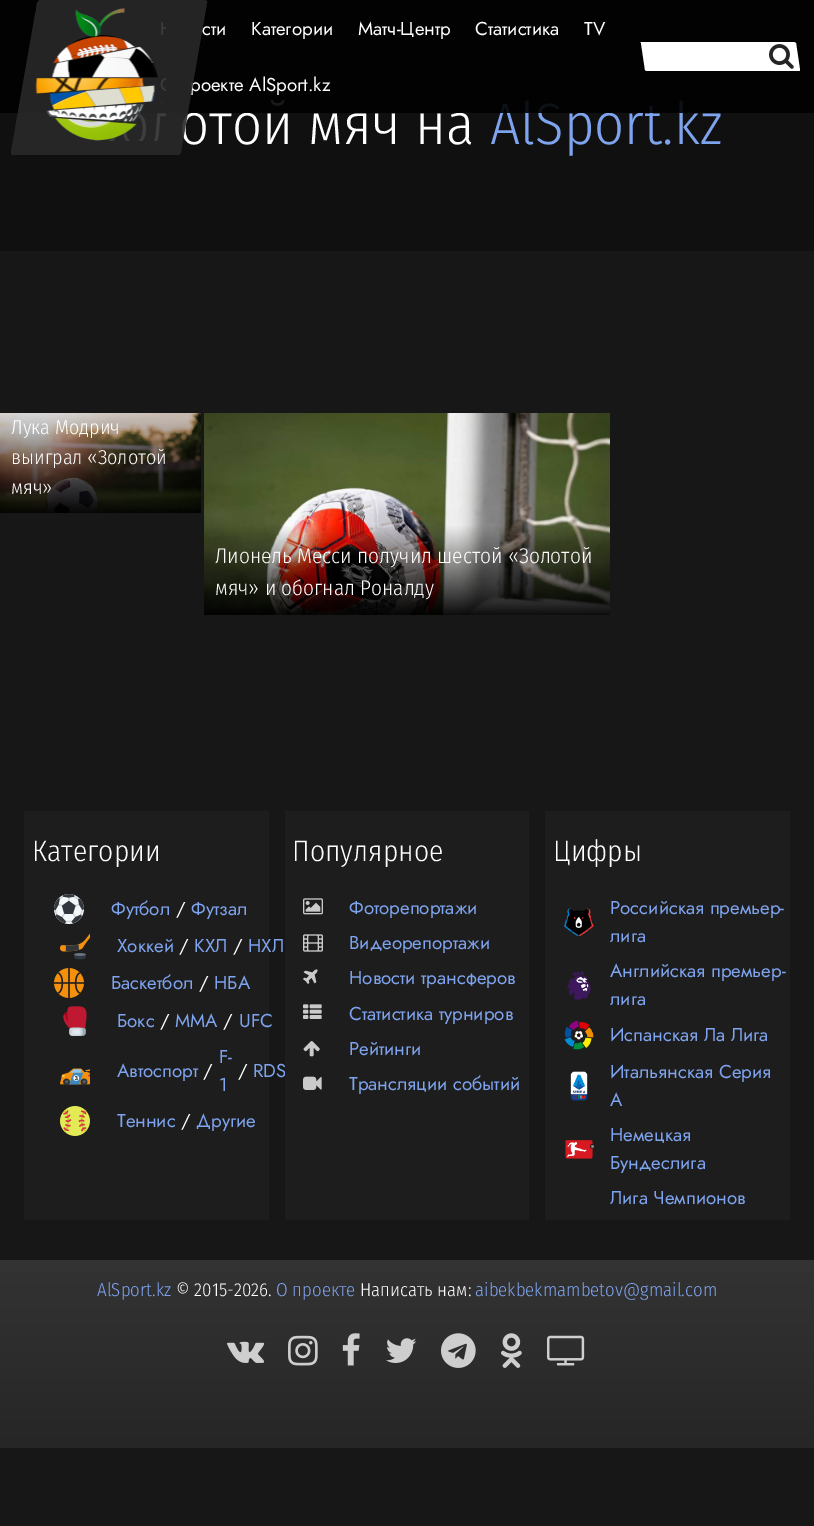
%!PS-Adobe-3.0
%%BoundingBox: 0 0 814 1526
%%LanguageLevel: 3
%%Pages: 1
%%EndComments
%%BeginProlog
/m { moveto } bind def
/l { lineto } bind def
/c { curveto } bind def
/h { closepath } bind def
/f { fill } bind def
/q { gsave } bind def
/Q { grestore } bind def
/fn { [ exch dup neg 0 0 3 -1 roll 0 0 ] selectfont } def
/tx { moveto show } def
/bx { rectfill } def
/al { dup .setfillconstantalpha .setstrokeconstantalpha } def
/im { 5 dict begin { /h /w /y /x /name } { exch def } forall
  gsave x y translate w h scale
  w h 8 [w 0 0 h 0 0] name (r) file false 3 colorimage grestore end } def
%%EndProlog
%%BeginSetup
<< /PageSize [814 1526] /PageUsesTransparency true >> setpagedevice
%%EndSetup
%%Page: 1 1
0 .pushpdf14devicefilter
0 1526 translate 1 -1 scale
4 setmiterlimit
0.09 setgray
0 0 814 1526 bx
0.063 setgray
0 0 814 251 bx
/FiraSansCondensed-Light 58.5 fn
1 setgray
(отой мяч на) 179 144 tx
0.494 0.643 0.937 setrgbcolor
(AlSport.kz) 490 144 tx
0.9 al
0 setgray
0 0 814 113 bx
/Jost-Regular 18.7 fn
1 al
1 setgray
(сти) 202 35 tx
(роекте AlSport.kz) 190 91 tx
0.9 al
0.157 setgray
41 0 m 205 0 l 206 0 208 1 207 3 c 181 152 l 181 154 179 155 177 155 c 13 155 l 12 155 11 154 11 152 c 37 3 l 38 1 39 0 41 0 c h f
1 al
(image0.raw) 35 8 131 133 im
1 setgray
(Категории) 251 35 tx
(Матч-Центр) 358 35 tx
(Статистика) 475 35 tx
(TV) 584 35 tx
641 42 m 794 42 l 795 42 795 43 796 43 c 800 70 l 800 70 800 71 799 71 c 646 71 l 646 71 645 70 645 70 c 641 43 l 640 43 641 42 641 42 c h f
(image1.raw) 769 44 25 25 im
(image2.raw) 0 413 201 100 im
/FiraSansCondensed-Light 20 fn
(Лука Модрич) 11 434 tx
(выиграл «Золотой) 11 464 tx
(мяч») 11 494 tx
(image3.raw) 204 413 406 202 im
/FiraSansCondensed-Light 21.3 fn
(Лионель Месси получил шестой «Золотой) 215 563 tx
(мяч» и обогнал Роналду) 215 595 tx
0.114 setgray
24 811 245 409 bx
/FiraSansCondensed-Light 29.5 fn
1 setgray
(Категории) 32 861 tx
(image4.raw) 54 894 30 30 im
/Jost-Regular 18.7 fn
0.494 0.643 0.937 setrgbcolor
(Футбол) 111 915 tx
1 setgray
(/) 176 915 tx
0.494 0.643 0.937 setrgbcolor
(Футзал) 191 915 tx
(image5.raw) 60 933 30 27 im
(Хоккей) 117 952 tx
1 setgray
(/) 179 952 tx
0.494 0.643 0.937 setrgbcolor
(КХЛ) 194 952 tx
1 setgray
(/) 233 952 tx
0.494 0.643 0.937 setrgbcolor
(НХЛ) 248 952 tx
(image6.raw) 54 968 30 30 im
(Баскетбол) 111 989 tx
1 setgray
(/) 199 989 tx
0.494 0.643 0.937 setrgbcolor
(НБА) 214 989 tx
(image7.raw) 63 1006 24 30 im
(Бокс) 117 1027 tx
1 setgray
(/) 160 1027 tx
0.494 0.643 0.937 setrgbcolor
(ММА) 175 1027 tx
1 setgray
(/) 223 1027 tx
0.494 0.643 0.937 setrgbcolor
(UFC) 239 1027 tx
(image8.raw) 60 1068 30 18 im
(Автоспорт) 117 1077 tx
1 setgray
(/) 203 1077 tx
0.494 0.643 0.937 setrgbcolor
(F-) 219 1063 tx
(1) 219 1091 tx
1 setgray
(/) 238 1077 tx
0.494 0.643 0.937 setrgbcolor
(RDS) 253 1077 tx
(image9.raw) 60 1106 30 30 im
(Теннис) 117 1127 tx
1 setgray
(/) 181 1127 tx
0.494 0.643 0.937 setrgbcolor
(Другие) 196 1127 tx
0.114 setgray
285 811 244 409 bx
/FiraSansCondensed-Light 29.5 fn
1 setgray
(Популярное) 292 861 tx
(image10.raw) 303 898 20 17 im
/Jost-Regular 18.7 fn
0.494 0.643 0.937 setrgbcolor
(Фоторепортажи) 349 914 tx
(image11.raw) 303 934 20 18 im
(Видеорепортажи) 349 949 tx
(image12.raw) 303 969 15 15 im
(Новости трансферов) 349 984 tx
(image13.raw) 303 1004 19 15 im
(Статистика турниров) 349 1020 tx
(image14.raw) 303 1041 17 16 im
(Рейтинги) 349 1055 tx
(image15.raw) 303 1076 19 14 im
(Трансляции событий) 349 1090 tx
0.114 setgray
545 811 245 409 bx
/FiraSansCondensed-Light 29.5 fn
1 setgray
(Цифры) 553 861 tx
(image16.raw) 564 908 30 29 im
/Jost-Regular 18.7 fn
0.494 0.643 0.937 setrgbcolor
(Российская премьер-) 610 914 tx
(лига) 610 942 tx
(image17.raw) 567 970 24 30 im
(Английская премьер-) 610 977 tx
(лига) 610 1005 tx
(image18.raw) 564 1020 30 30 im
(Испанская Ла Лига) 610 1041 tx
(image19.raw) 570 1071 18 30 im
(Итальянская Серия) 610 1078 tx
(А) 610 1106 tx
(image20.raw) 565 1140 29 19 im
(Немецкая) 610 1141 tx
(Бундеслига) 610 1169 tx
(Лига Чемпионов) 610 1204 tx
q 0 1260 m 814 1260 l 814 1448 l 0 1448 l h clip newpath
<< /ShadingType 2 /ColorSpace /DeviceRGB /Coords [407 1260 407 1448] /Extend [true true] /Function << /FunctionType 3 /Domain [0 1] /Functions [<< /FunctionType 2 /Domain [0 1] /C0 [0.2 0.2 0.2] /C1 [0.2 0.2 0.2] /N 1 >> << /FunctionType 2 /Domain [0 1] /C0 [0.2 0.2 0.2] /C1 [0.149 0.149 0.149] /N 1 >>] /Bounds [0.01] /Encode [0 1 0 1] >> >> shfill Q
/FiraSansCondensed-Light 18.7 fn
(AlSport.kz) 97 1296 tx
1 setgray
(© 2015-2026.) 176 1296 tx
0.494 0.643 0.937 setrgbcolor
(О проекте) 276 1296 tx
1 setgray
(Написать нам:) 360 1296 tx
0.494 0.643 0.937 setrgbcolor
(aibekbekmambetov@gmail.com) 475 1296 tx
(image21.raw) 227 1341 38 22 im
(image22.raw) 288 1335 30 31 im
(image23.raw) 342 1333 18 33 im
(image24.raw) 386 1338 31 25 im
(image25.raw) 441 1333 35 35 im
(image26.raw) 501 1333 21 35 im
(image27.raw) 547 1335 38 31 im
.poppdf14devicefilter showpage
%%EOF
